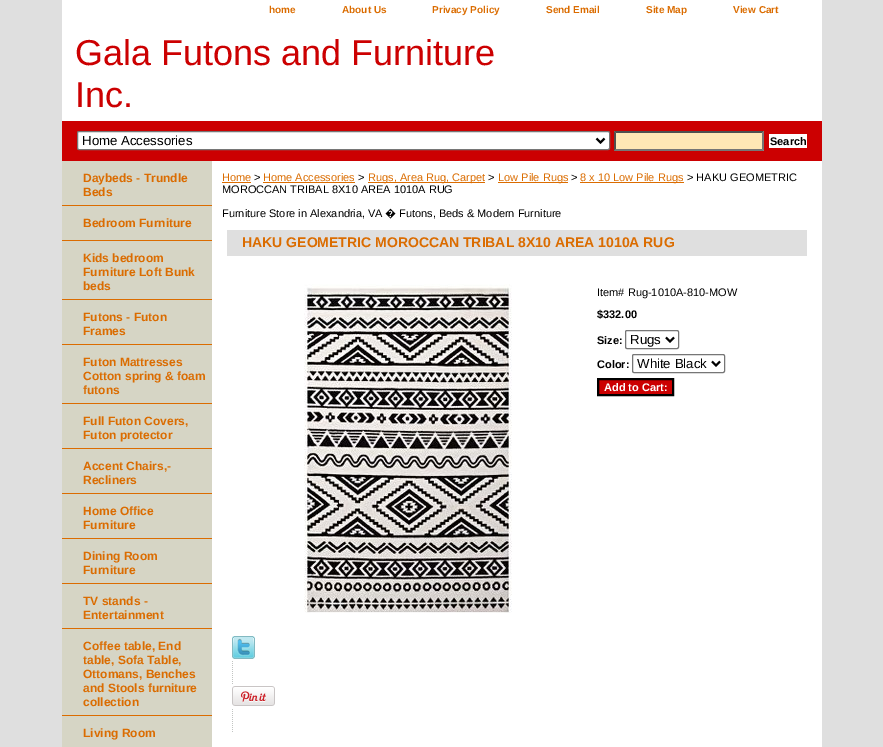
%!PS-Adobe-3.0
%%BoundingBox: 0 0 883 747
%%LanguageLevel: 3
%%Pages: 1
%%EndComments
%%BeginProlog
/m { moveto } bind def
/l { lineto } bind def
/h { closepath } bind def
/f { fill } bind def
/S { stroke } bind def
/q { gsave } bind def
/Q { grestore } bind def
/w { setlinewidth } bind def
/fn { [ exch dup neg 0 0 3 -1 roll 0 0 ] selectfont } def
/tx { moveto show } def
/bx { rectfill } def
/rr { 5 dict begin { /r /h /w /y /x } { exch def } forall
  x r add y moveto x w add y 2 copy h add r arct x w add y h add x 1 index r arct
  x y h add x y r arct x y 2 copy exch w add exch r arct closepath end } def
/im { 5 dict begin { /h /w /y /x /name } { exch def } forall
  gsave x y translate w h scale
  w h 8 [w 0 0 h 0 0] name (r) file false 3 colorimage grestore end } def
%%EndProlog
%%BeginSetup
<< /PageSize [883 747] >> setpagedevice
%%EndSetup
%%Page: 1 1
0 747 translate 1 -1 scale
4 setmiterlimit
0.875 setgray
0 0 883 747 bx
1 setgray
62 0 760 121 bx
/LiberationSans-Bold 10 fn
0.859 0.424 0 setrgbcolor
(home) 269 13 tx
(About Us) 342 13 tx
(Privacy Policy) 432 13 tx
(Send Email) 546 13 tx
(Site Map) 646 13 tx
(View Cart) 733 13 tx
/LiberationSans-Regular 36 fn
0.8 0 0.004 setrgbcolor
(Gala Futons and Furniture) 75 65 tx
(Inc.) 75 107 tx
62 121 760 40 bx
1 setgray
77.5 131.5 532 18 1.5 rr q f Q
0.463 setgray
S
0 setgray
2 w
596.5 138.5 m 600.5 142.5 l 604.5 138.5 l S
/LiberationSans-Regular 13.25 fn
(Home Accessories) 82 145 tx
1 0.906 0.71 setrgbcolor
614 131 150 20 bx
0.31 setgray
614 131 m 764 131 l 762 133 l 616 133 l h f
0.463 setgray
764 131 m 764 151 l 762 149 l 762 133 l h f
764 151 m 614 151 l 616 149 l 762 149 l h f
0.31 setgray
614 151 m 614 131 l 616 133 l 616 149 l h f
1 setgray
769 134 38 14 bx
/LiberationSans-Bold 11 fn
0 setgray
(Search) 770 145 tx
1 setgray
212 161 610 586 bx
0.839 0.835 0.773 setrgbcolor
62 161 150 586 bx
0.859 0.424 0 setrgbcolor
62 205 150 1 bx
/LiberationSans-Bold 12 fn
(Daybeds - Trundle) 83 182 tx
(Beds) 83 196 tx
62 240 150 1 bx
(Bedroom Furniture) 83 227 tx
62 299 150 1 bx
(Kids bedroom) 83 262 tx
(Furniture Loft Bunk) 83 276 tx
(beds) 83 290 tx
62 344 150 1 bx
(Futons - Futon) 83 321 tx
(Frames) 83 335 tx
62 403 150 1 bx
(Futon Mattresses) 83 366 tx
(Cotton spring & foam) 83 380 tx
(futons) 83 394 tx
62 448 150 1 bx
(Full Futon Covers,) 83 425 tx
(Futon protector) 83 439 tx
62 493 150 1 bx
(Accent Chairs,-) 83 470 tx
(Recliners) 83 484 tx
62 538 150 1 bx
(Home Office) 83 515 tx
(Furniture) 83 529 tx
62 583 150 1 bx
(Dining Room) 83 560 tx
(Furniture) 83 574 tx
62 628 150 1 bx
(TV stands -) 83 605 tx
(Entertainment) 83 619 tx
62 715 150 1 bx
(Coffee table, End) 83 650 tx
(table, Sofa Table,) 83 664 tx
(Ottomans, Benches) 83 678 tx
(and Stools furniture) 83 692 tx
(collection) 83 706 tx
(Living Room) 83 737 tx
/LiberationSans-Regular 11 fn
(Home) 222 181 tx
222 182 29 1 bx
0 setgray
(>) 254 181 tx
0.859 0.424 0 setrgbcolor
(Home Accessories) 263 181 tx
263 182 92 1 bx
0 setgray
(>) 358 181 tx
0.859 0.424 0 setrgbcolor
368 182 117 1 bx
(Rugs, Area Rug, Carpet) 368 181 tx
0 setgray
(>) 488 181 tx
0.859 0.424 0 setrgbcolor
498 182 70 1 bx
(Low Pile Rugs) 498 181 tx
0 setgray
(>) 571 181 tx
0.859 0.424 0 setrgbcolor
580 182 104 1 bx
(8 x 10 Low Pile Rugs) 580 181 tx
0 setgray
(> HAKU GEOMETRIC) 687 181 tx
(MOROCCAN TRIBAL 8X10 AREA 1010A RUG) 222 193 tx
(Furniture Store in Alexandria, VA) 222 217 tx
/NotoSans-Regular 11 fn
(�) 385 217 tx
/LiberationSans-Regular 11 fn
(Futons, Beds & Modern Furniture) 399 217 tx
0.875 setgray
227 230 580 26 bx
/LiberationSans-Bold 14 fn
0.859 0.424 0 setrgbcolor
(HAKU GEOMETRIC MOROCCAN TRIBAL 8X10 AREA 1010A RUG) 242 247 tx
(image0.raw) 304 284 208 329 im
/LiberationSans-Regular 11 fn
0 setgray
(Item# Rug-1010A-810-MOW) 597 296 tx
/LiberationSans-Bold 11 fn
($332.00) 597 318 tx
(Size:) 597 344 tx
0.463 setgray
1 w
625.5 330.5 53 18 1.5 rr S
0 setgray
2 w
666 337.5 m 670 341.5 l 674 337.5 l S
/LiberationSans-Regular 13.25 fn
(Rugs) 630 344 tx
/LiberationSans-Bold 11 fn
(Color:) 597 368 tx
0.463 setgray
1 w
632.5 354.5 92 18 1.5 rr S
0 setgray
2 w
712 361.5 m 716 365.5 l 720 361.5 l S
/LiberationSans-Regular 13.25 fn
(White Black) 637 368 tx
0.8 0 0.004 setrgbcolor
598 379 m 673 379 l 673 395 l 598 395 l h q f Q
0 setgray
S
/LiberationSans-Bold 11 fn
1 setgray
(Add to Cart:) 604 391 tx
(image1.raw) 232 636 23 23 im
(image2.raw) 232 661 1 23 im
(image3.raw) 232 686 43 20 im
(image2.raw) 232 709 1 23 im
showpage
%%EOF
